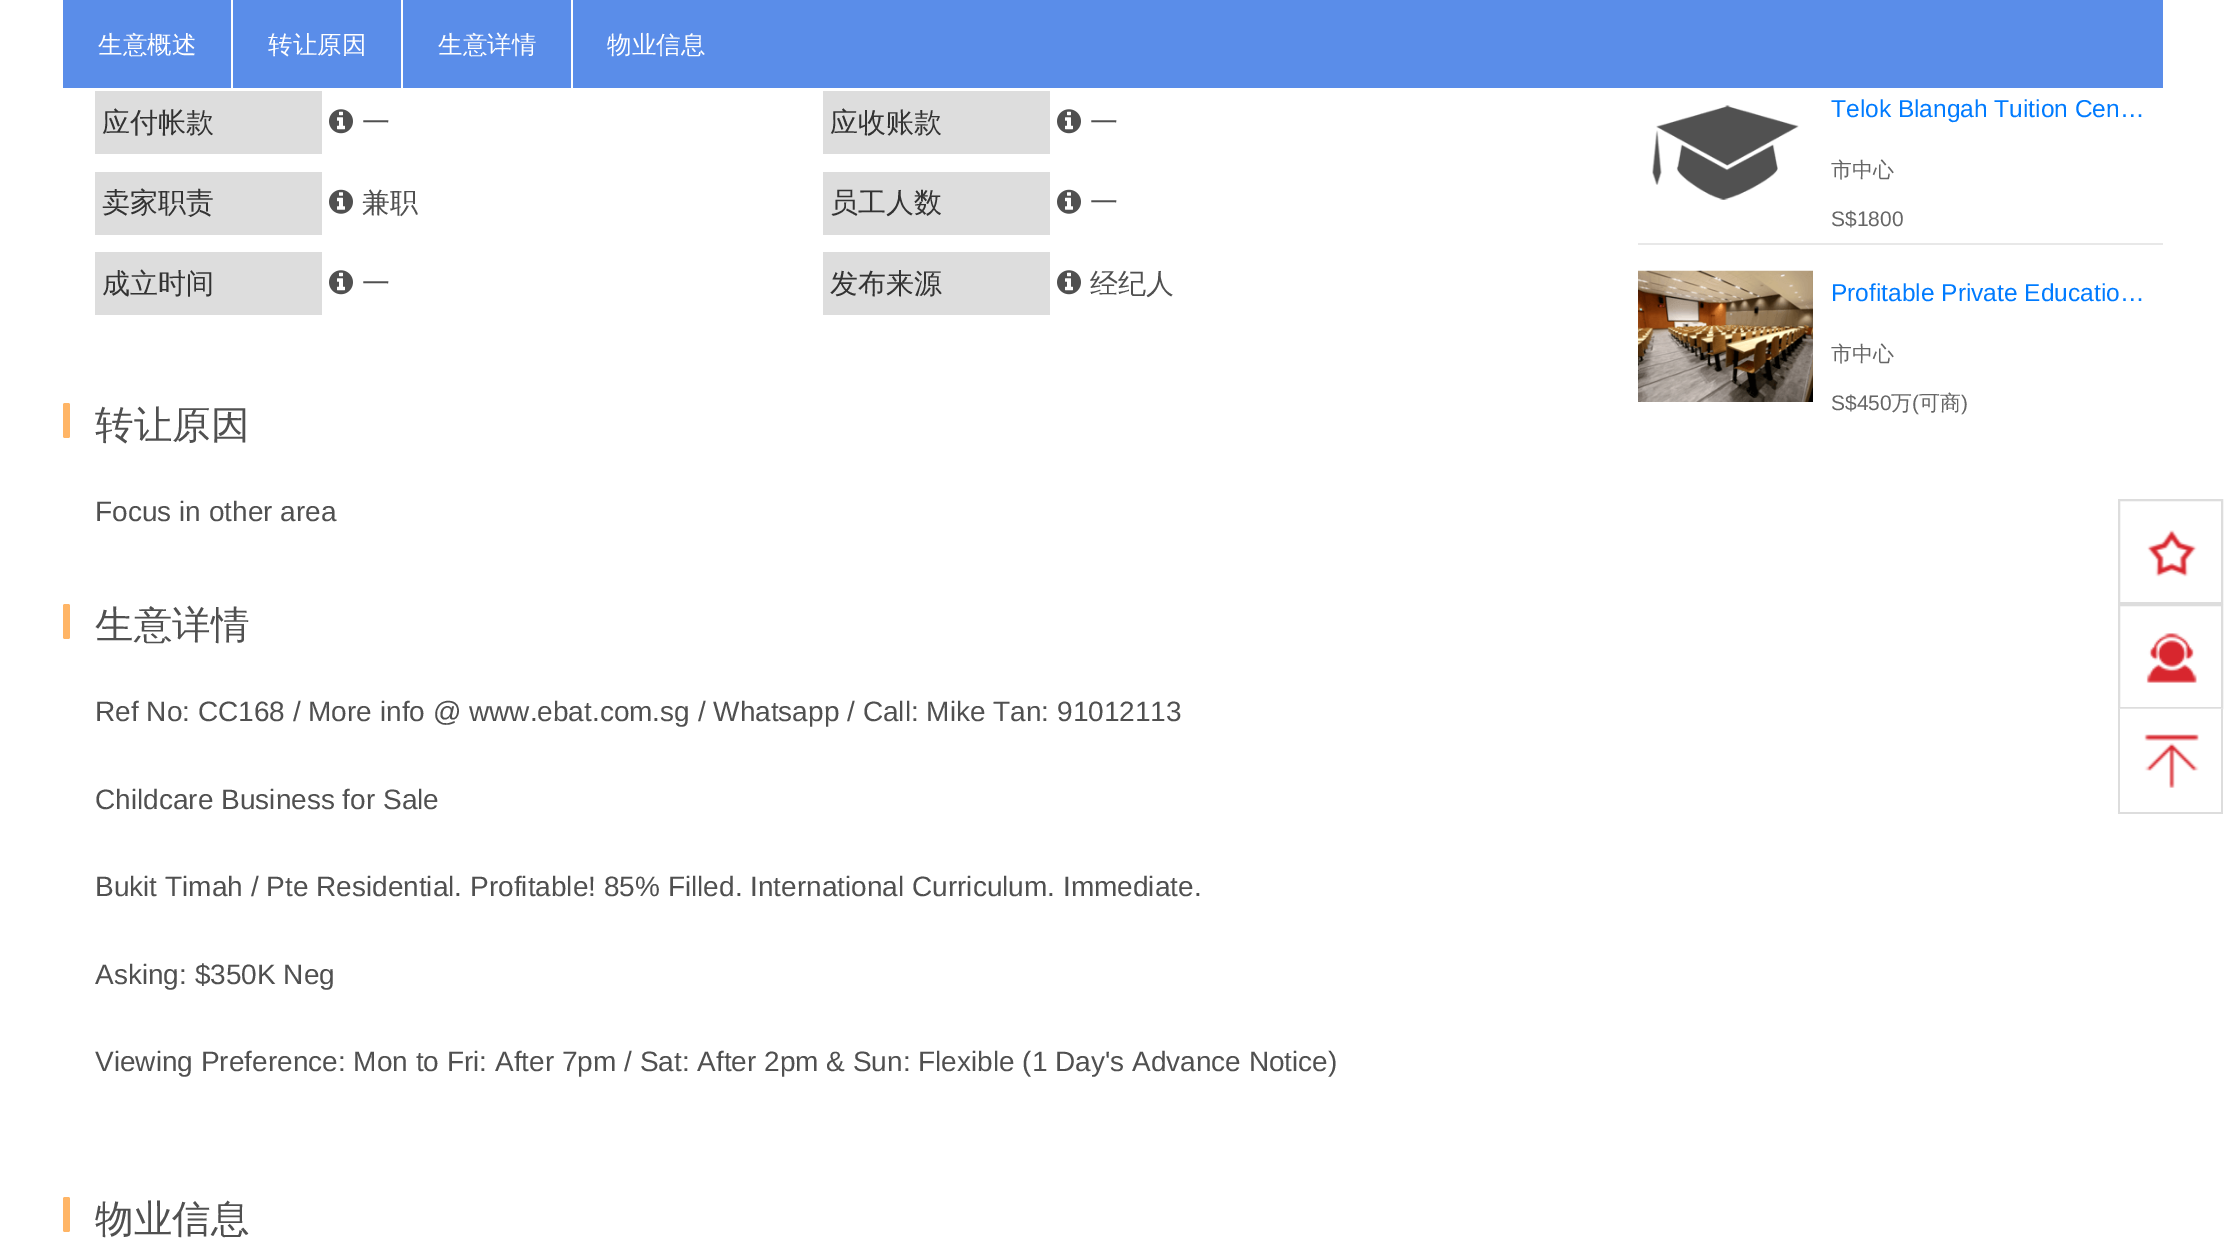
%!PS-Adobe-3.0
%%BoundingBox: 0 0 2225 1246
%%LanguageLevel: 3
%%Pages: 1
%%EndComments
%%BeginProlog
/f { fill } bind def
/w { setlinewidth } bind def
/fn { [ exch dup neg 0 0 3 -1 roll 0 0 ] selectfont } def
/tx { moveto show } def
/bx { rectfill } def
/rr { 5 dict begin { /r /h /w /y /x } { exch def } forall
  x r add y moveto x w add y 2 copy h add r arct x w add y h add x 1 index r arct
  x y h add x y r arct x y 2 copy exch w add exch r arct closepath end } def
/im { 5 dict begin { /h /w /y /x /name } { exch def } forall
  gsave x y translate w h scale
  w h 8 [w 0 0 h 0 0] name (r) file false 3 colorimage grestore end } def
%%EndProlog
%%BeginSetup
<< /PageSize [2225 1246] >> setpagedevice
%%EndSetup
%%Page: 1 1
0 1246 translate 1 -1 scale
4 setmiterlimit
1 setgray
0 0 2225 1246 bx
0.353 0.553 0.914 setrgbcolor
63 0 2100 88 bx
1 setgray
231 0 2 88 bx
/WenQuanYiZenHei-Medium 24.5 fn
(生意概述) 98 53 tx
401 0 2 88 bx
(转让原因) 268 53 tx
571 0 2 88 bx
(生意详情) 438 53 tx
(物业信息) 607 53 tx
0.867 setgray
95 91 227 63 bx
/WenQuanYiZenHei-Medium 28 fn
0.2 setgray
(应付帐款) 102 132 tx
(image0.raw) 329 109 24 25 im
0.314 setgray
(一) 362 132 tx
0.867 setgray
823 91 227 63 bx
0.2 setgray
(应收账款) 830 132 tx
(image0.raw) 1057 109 24 25 im
0.314 setgray
(一) 1090 132 tx
0.867 setgray
95 172 227 63 bx
0.2 setgray
(卖家职责) 102 212 tx
(image1.raw) 329 189 24 25 im
0.314 setgray
(兼职) 362 212 tx
0.867 setgray
823 172 227 63 bx
0.2 setgray
(员工人数) 830 212 tx
(image1.raw) 1057 189 24 25 im
0.314 setgray
(一) 1090 212 tx
0.867 setgray
95 252 227 63 bx
0.2 setgray
(成立时间) 102 293 tx
(image0.raw) 329 270 24 25 im
0.314 setgray
(一) 362 293 tx
0.867 setgray
823 252 227 63 bx
0.2 setgray
(发布来源) 830 293 tx
(image0.raw) 1057 270 24 25 im
0.314 setgray
(经纪人) 1090 293 tx
1 0.71 0.4 setrgbcolor
63 403 7 35 2 rr f
/WenQuanYiZenHei-Medium 38.5 fn
0.314 setgray
(转让原因) 95 438 tx
/LiberationSans-Regular 28 fn
(Focus in other area) 95 521 tx
1 0.71 0.4 setrgbcolor
63 604 7 35 2 rr f
/WenQuanYiZenHei-Medium 38.5 fn
0.314 setgray
(生意详情) 95 638 tx
/LiberationSans-Regular 28 fn
(Ref No: CC168 / More info @ www.ebat.com.sg / Whatsapp / Call: Mike Tan: 91012113) 95 721 tx
(Childcare Business for Sale) 95 809 tx
(Bukit Timah / Pte Residential. Profitable! 85% Filled. International Curriculum. Immediate.) 95 896 tx
(Asking: $350K Neg) 95 984 tx
(Viewing Preference: Mon to Fri: After 7pm / Sat: After 2pm & Sun: Flexible \(1 Day's Advance Notice\)) 95 1071 tx
(image2.raw) 2147 530 50 47 im
0.867 setgray
2 w
2119 500 103 103 rectstroke
(image3.raw) 2146 633 51 50 im
2119 605 103 103 rectstroke
(image4.raw) 2119 708 104 80 im
2221 709 2 105 bx
2118 812 105 2 bx
2118 709 2 105 bx
1 0.71 0.4 setrgbcolor
63 1197 7 35 2 rr f
/WenQuanYiZenHei-Medium 38.5 fn
0.314 setgray
(物业信息) 95 1232 tx
0.91 setgray
1638 243 525 2 bx
(image5.raw) 1652 105 147 95 im
/LiberationSans-Regular 24.5 fn
0 0.482 1 setrgbcolor
(Telok Blangah Tuition Cen…) 1831 117 tx
/WenQuanYiZenHei-Medium 21 fn
0.4 setgray
(市中心) 1831 177 tx
/LiberationSans-Regular 21 fn
(S$1800) 1831 226 tx
(image6.raw) 1638 270 175 132 im
/LiberationSans-Regular 24.5 fn
0 0.482 1 setrgbcolor
(Profitable Private Educatio…) 1831 301 tx
/WenQuanYiZenHei-Medium 21 fn
0.4 setgray
(市中心) 1831 361 tx
/LiberationSans-Regular 21 fn
(S$450) 1831 410 tx
/WenQuanYiZenHei-Medium 21 fn
(万) 1891 410 tx
/LiberationSans-Regular 21 fn
(\() 1912 410 tx
/WenQuanYiZenHei-Medium 21 fn
(可商) 1919 410 tx
/LiberationSans-Regular 21 fn
(\)) 1961 410 tx
showpage
%%EOF
